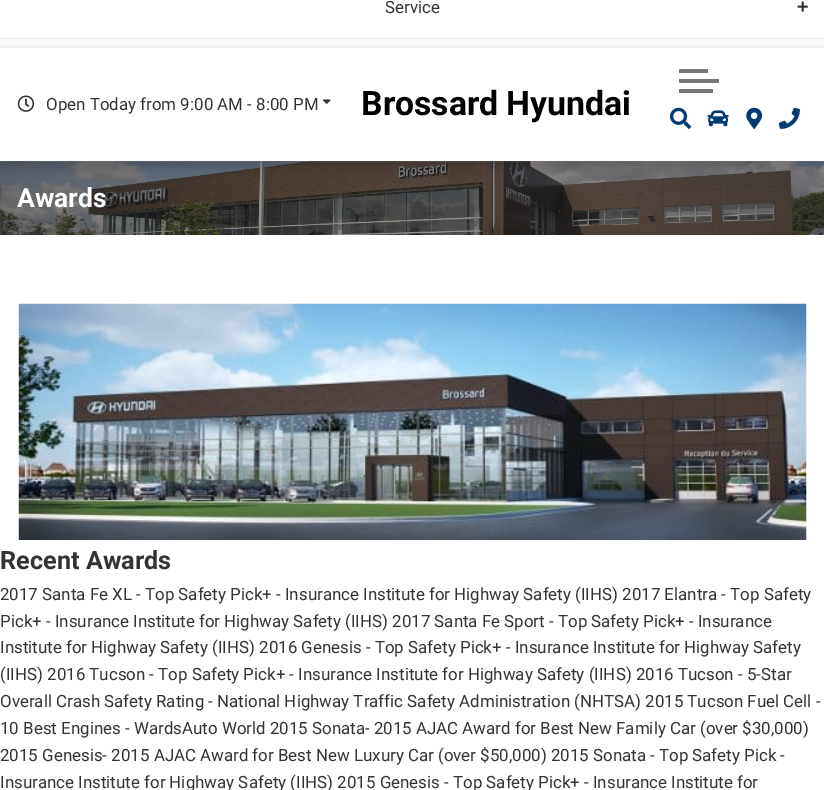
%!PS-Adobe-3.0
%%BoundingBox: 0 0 824 790
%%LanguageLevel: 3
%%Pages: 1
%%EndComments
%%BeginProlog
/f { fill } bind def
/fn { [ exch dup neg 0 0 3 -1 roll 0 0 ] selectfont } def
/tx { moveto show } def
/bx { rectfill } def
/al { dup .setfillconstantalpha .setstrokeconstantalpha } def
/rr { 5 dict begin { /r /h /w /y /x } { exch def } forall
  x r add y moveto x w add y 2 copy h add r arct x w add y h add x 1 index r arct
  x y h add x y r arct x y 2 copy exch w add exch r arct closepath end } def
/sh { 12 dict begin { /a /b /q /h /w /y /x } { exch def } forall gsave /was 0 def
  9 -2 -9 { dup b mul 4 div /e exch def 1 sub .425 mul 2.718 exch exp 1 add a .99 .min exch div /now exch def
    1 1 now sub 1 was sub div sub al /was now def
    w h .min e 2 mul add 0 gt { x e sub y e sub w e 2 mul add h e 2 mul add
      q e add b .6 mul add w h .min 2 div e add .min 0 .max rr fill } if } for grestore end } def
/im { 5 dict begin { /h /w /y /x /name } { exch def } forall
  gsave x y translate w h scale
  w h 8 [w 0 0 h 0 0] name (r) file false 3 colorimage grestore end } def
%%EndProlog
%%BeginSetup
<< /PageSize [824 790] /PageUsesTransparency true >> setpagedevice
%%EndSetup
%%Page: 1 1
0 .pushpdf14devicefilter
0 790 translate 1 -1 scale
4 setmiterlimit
1 setgray
0 0 824 790 bx
0.925 setgray
0 38 824 1 bx
/Roboto-Regular 16.9 fn
0.2 setgray
(Service) 385 13 tx
(image0.raw) 797 1 11 11 im
(image7.raw) 0 161 824 74 im
0 setgray
0 51 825 114 0 6.5 0.2 sh
1 setgray
0 48 824 113 bx
(image1.raw) 17 95 18 17 im
0.2 setgray
(Open Today from 9:00 AM - 8:00 PM) 46 110 tx
(image2.raw) 322 99 9 5 im
/Roboto-Bold 33.75 fn
0 setgray
(Brossard Hyundai) 361 115 tx
0.467 setgray
679 79 40 4 1 rr f
679 69 29 4 1 rr f
679 89 34 4 1 rr f
(image3.raw) 670 107 22 22 im
(image4.raw) 707 110 22 17 im
(image5.raw) 746 107 17 22 im
(image6.raw) 778 107 22 22 im
/Roboto-Bold 26.5 fn
1 setgray
(Awards) 17 207 tx
(image8.raw) 18 303 789 237 im
/Roboto-Bold 25.25 fn
0.2 setgray
(Recent Awards) 0 569 tx
/Roboto-Regular 16.9 fn
(2017 Santa Fe XL - Top Safety Pick+ - Insurance Institute for Highway Safety \(IIHS\) 2017 Elantra - Top Safety) 0 600 tx
(Pick+ - Insurance Institute for Highway Safety \(IIHS\) 2017 Santa Fe Sport - Top Safety Pick+ - Insurance) 0 627 tx
(Institute for Highway Safety \(IIHS\) 2016 Genesis - Top Safety Pick+ - Insurance Institute for Highway Safety) 0 653 tx
(\(IIHS\) 2016 Tucson - Top Safety Pick+ - Insurance Institute for Highway Safety \(IIHS\) 2016 Tucson - 5-Star) 0 680 tx
(Overall Crash Safety Rating - National Highway Traffic Safety Administration \(NHTSA\) 2015 Tucson Fuel Cell -) 0 707 tx
(10 Best Engines - WardsAuto World 2015 Sonata- 2015 AJAC Award for Best New Family Car \(over $30,000\)) 0 734 tx
(2015 Genesis- 2015 AJAC Award for Best New Luxury Car \(over $50,000\) 2015 Sonata - Top Safety Pick -) 0 761 tx
(Insurance Institute for Highway Safety \(IIHS\) 2015 Genesis - Top Safety Pick+ - Insurance Institute for) 0 788 tx
.poppdf14devicefilter showpage
%%EOF
